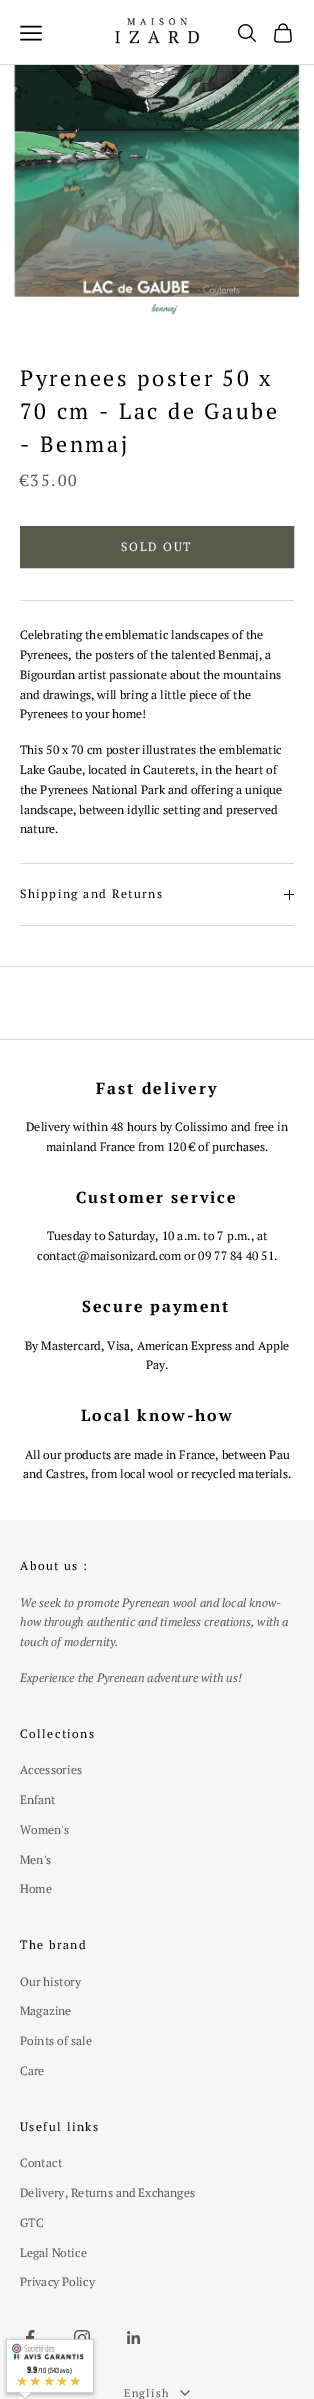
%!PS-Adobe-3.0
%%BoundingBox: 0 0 314 2399
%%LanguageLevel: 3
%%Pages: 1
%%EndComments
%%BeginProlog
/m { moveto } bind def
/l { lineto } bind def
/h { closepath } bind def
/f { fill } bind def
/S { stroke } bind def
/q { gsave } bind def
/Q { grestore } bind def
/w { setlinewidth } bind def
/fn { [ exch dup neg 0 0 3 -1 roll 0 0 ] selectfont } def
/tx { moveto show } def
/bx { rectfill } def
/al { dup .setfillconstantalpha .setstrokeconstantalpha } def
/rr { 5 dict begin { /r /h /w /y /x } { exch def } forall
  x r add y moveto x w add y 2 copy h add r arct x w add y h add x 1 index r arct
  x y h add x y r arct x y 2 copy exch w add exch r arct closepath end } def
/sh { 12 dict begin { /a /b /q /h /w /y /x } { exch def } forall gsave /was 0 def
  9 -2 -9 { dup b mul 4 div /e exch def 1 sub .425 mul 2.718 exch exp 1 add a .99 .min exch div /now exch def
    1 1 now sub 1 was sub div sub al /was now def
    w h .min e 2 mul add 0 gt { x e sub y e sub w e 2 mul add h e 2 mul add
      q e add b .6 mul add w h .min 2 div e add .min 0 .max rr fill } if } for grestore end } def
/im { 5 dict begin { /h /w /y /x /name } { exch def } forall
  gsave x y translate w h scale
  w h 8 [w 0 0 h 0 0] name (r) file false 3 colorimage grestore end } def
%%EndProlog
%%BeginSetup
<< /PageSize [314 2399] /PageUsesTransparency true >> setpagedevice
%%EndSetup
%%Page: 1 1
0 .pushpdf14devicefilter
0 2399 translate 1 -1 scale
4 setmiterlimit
0.965 setgray
0 0 314 2399 bx
1 setgray
0 0 314 64 bx
0.851 setgray
0 64 314 1 bx
0 setgray
1.4 w
2 setlinecap
21 39.5 m 41 39.5 l 21 33 m 41 33 l 21 26.5 m 41 26.5 l S
(image0.raw) 115 18 85 26 im
(image1.raw) 238 24 18 18 im
(image2.raw) 274 23 18 20 im
1 setgray
0 65 314 901 bx
(image3.raw) 12 65 289 251 im
/PTSerif-Regular 22 fn
0 setgray
20 386 m 2.6 0 (Pyrenees poster 50 x) ashow
20 419 m 2.6 0 (70 cm - Lac de Gaube) ashow
20 452 m 2.6 0 (- Benmaj) ashow
/PTSerif-Regular 16 fn
0.337 setgray
20 486 m 1.9 0 (€35.00) ashow
0.345 0.357 0.298 setrgbcolor
20.5 526.5 m 293.5 526.5 l 293.5 567.5 l 20.5 567.5 l h q f Q
1 w
0 setlinecap
S
/PTSerif-Regular 12 fn
1 setgray
121 551 m 1.75 0 (SOLD OUT) ashow
0.851 setgray
20 600 274 1 bx
0 setgray
(Celebrating the emblematic landscapes of the) 20 639 tx
(Pyrenees, the posters of the talented Benmaj, a) 20 659 tx
(Bigourdan artist passionate about the mountains) 20 679 tx
(and drawings, will bring a little piece of the) 20 699 tx
(Pyrenees to your home!) 20 718 tx
(This 50 x 70 cm poster illustrates the emblematic) 20 754 tx
(Lake Gaube, located in Cauterets, in the heart of) 20 774 tx
(the Pyrenees National Park and offering a unique) 20 794 tx
(landscape, between idyllic setting and preserved) 20 814 tx
(nature.) 20 833 tx
0.851 setgray
20 863 274 1 bx
20 925 274 1 bx
0 setgray
20 898 m 1.4 0 (Shipping and Returns) ashow
289 890 1 10 bx
284 894 10 1 bx
1 setgray
0 967 314 72 bx
0.851 setgray
0 966 314 1 bx
1 setgray
0 1040 314 480 bx
0.851 setgray
0 1039 314 1 bx
/PTSerif-Bold 16 fn
0 setgray
96 1094 m 1.9 0 (Fast delivery) ashow
/PTSerif-Regular 12 fn
(Delivery within 48 hours by Colissimo and free in) 26 1131 tx
(mainland France from 120 € of purchases.) 46 1151 tx
/PTSerif-Bold 16 fn
76 1203 m 1.9 0 (Customer service) ashow
/PTSerif-Regular 12 fn
(Tuesday to Saturday, 10 a.m. to 7 p.m., at) 47 1240 tx
(contact@maisonizard.com or 09 77 84 40 51.) 37 1260 tx
/PTSerif-Bold 16 fn
82 1312 m 1.9 0 (Secure payment) ashow
/PTSerif-Regular 12 fn
(By Mastercard, Visa, American Express and Apple) 25 1350 tx
(Pay.) 146 1369 tx
/PTSerif-Bold 16 fn
81 1421 m 1.9 0 (Local know-how) ashow
/PTSerif-Regular 12 fn
(All our products are made in France, between Pau) 25 1459 tx
(and Castres, from local wool or recycled materials.) 23 1478 tx
20 1570 m 1.4 0 (About us :) ashow
/PTSerif-Italic 12 fn
0.337 setgray
(We seek to promote Pyrenean wool and local know-) 20 1607 tx
(how through authentic and timeless creations, with a) 20 1626 tx
(touch of modernity.) 20 1646 tx
(Experience the Pyrenean adventure with us!) 20 1682 tx
/PTSerif-Regular 12 fn
0 setgray
20 1738 m 1.4 0 (Collections) ashow
0.337 setgray
(Accessories) 20 1774 tx
(Enfant) 20 1804 tx
(Women's) 20 1834 tx
(Men's) 20 1864 tx
(Home) 20 1893 tx
0 setgray
20 1949 m 1.4 0 (The brand) ashow
0.337 setgray
(Our history) 20 1986 tx
(Magazine) 20 2015 tx
(Points of sale) 20 2045 tx
(Care) 20 2075 tx
0 setgray
20 2131 m 1.4 0 (Useful links) ashow
0.337 setgray
(Contact) 20 2167 tx
(Delivery, Returns and Exchanges) 20 2197 tx
(GTC) 20 2227 tx
(Legal Notice) 20 2257 tx
(Privacy Policy) 20 2286 tx
(image4.raw) 26 2330 9 9 im
(image5.raw) 74 2330 16 9 im
(image6.raw) 127 2331 13 13 im
/PTSerif-Regular 11 fn
124 2397 m 1.25 0 (English) ashow
2 setlinecap
181 2391 m 185 2395 l 189 2391 l S
0 setgray
6 2340 88 55 1.5 2 0.25 sh
1 setgray
6.3 2339.3 87.4 53.4 1.2 rr q f Q
0.773 setgray
0.6 w
0 setlinecap
S
(image7.raw) 12 2343 72 17 im
/Oswald-Bold 8 fn
0.133 setgray
(9.9) 27 2373 tx
/Oswald-Regular 6.5 fn
(/10 \(543 avis\)) 38 2373 tx
/DejaVuSans-Regular 13.75 fn
0.957 0.741 0.227 setrgbcolor
16 2386 m 1 0 (★★★★★) ashow
(image8.raw) 19 2392 12 7 im
.poppdf14devicefilter showpage
%%EOF
